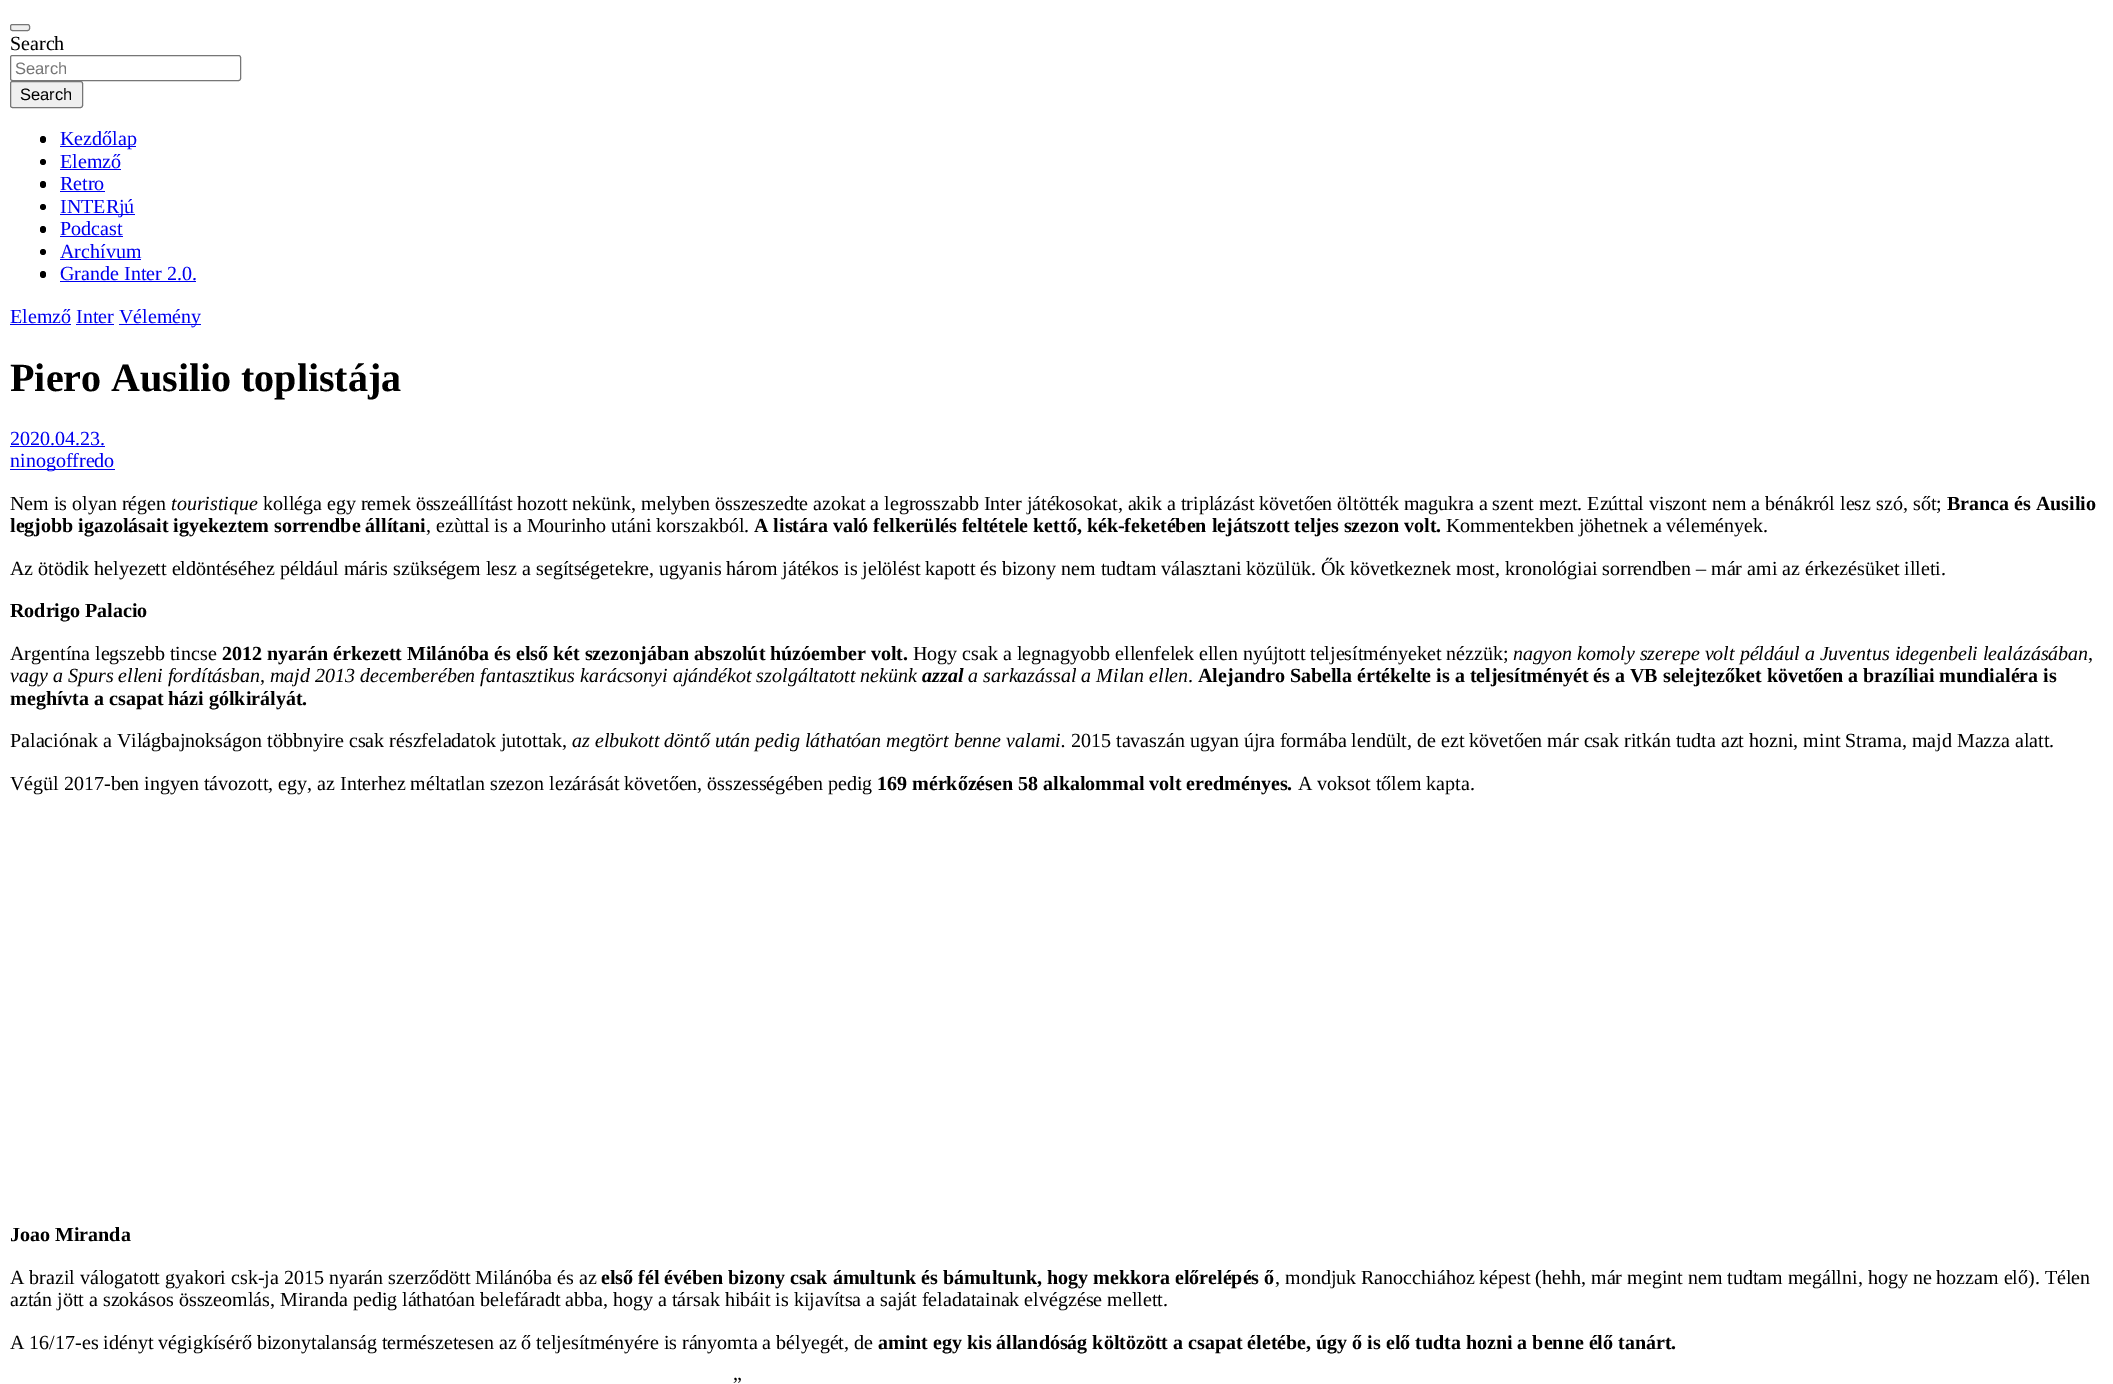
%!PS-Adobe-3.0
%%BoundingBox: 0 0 2113 1384
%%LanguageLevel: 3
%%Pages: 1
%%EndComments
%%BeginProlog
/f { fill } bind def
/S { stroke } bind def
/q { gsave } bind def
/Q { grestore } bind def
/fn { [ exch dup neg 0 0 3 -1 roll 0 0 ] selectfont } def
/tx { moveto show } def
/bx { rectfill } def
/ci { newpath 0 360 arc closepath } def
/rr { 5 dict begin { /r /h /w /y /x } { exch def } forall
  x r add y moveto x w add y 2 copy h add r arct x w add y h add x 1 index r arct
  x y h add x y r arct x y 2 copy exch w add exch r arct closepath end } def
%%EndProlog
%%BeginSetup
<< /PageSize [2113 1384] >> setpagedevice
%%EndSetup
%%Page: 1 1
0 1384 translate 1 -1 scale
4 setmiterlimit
1 setgray
0 0 2113 1384 bx
0.937 setgray
10.5 24.5 19 6 2 rr q f Q
0.463 setgray
S
/LiberationSerif-Regular 20 fn
0 setgray
(Search) 10 50 tx
0.463 setgray
10.5 55.5 230 25 2 rr S
/LiberationSans-Regular 16.5 fn
0.459 setgray
(Search) 15 74 tx
0.937 setgray
10.5 81.5 72 26 2 rr q f Q
0.463 setgray
S
0 setgray
(Search) 20 100 tx
40 136 6 7 3 rr f
0 0 0.933 setrgbcolor
60 146 76 1 bx
/LiberationSerif-Regular 20 fn
(Kezdőlap) 60 145 tx
0 setgray
43 162 3 ci f
0 0 0.933 setrgbcolor
(Elemző) 60 168 tx
60 169 61 1 bx
0 setgray
40 181 6 7 3 rr f
0 0 0.933 setrgbcolor
(Retro) 60 190 tx
60 191 45 1 bx
0 setgray
43 207 3 ci f
0 0 0.933 setrgbcolor
60 214 75 1 bx
(INTERjú) 60 213 tx
0 setgray
40 226 6 7 3 rr f
0 0 0.933 setrgbcolor
(Podcast) 60 235 tx
60 236 63 1 bx
0 setgray
43 252 3 ci f
0 0 0.933 setrgbcolor
(Archívum) 60 258 tx
60 259 81 1 bx
0 setgray
40 271 6 7 3 rr f
0 0 0.933 setrgbcolor
(Grande Inter 2.0.) 60 280 tx
60 281 136 1 bx
(Elemző Inter) 10 323 tx
10 324 61 1 bx
119 324 82 1 bx
(Vélemény) 119 323 tx
76 324 38 1 bx
/LiberationSerif-Bold 40 fn
0 setgray
(Piero Ausilio toplistája) 10 391 tx
/LiberationSerif-Regular 20 fn
0 0 0.933 setrgbcolor
(2020.04.23.) 10 445 tx
10 446 95 1 bx
10 469 105 1 bx
(ninogoffredo) 10 467 tx
0 setgray
(Nem is olyan régen) 10 510 tx
/LiberationSerif-Italic 20 fn
(touristique) 171 510 tx
/LiberationSerif-Regular 20 fn
(kolléga egy remek összeállítást hozott nekünk, melyben összeszedte azokat a legrosszabb Inter játékosokat, akik a triplázást követően öltötték magukra a szent mezt. Ezúttal viszont nem a bénákról lesz szó, sőt;) 263 510 tx
/LiberationSerif-Bold 20 fn
(Branca és Ausilio) 1947 510 tx
(legjobb igazolásait igyekeztem sorrendbe állítani) 10 532 tx
/LiberationSerif-Regular 20 fn
(, ezùttal is a Mourinho utáni korszakból.) 426 532 tx
/LiberationSerif-Bold 20 fn
(A listára való felkerülés feltétele kettő, kék-feketében lejátszott teljes szezon volt.) 754 532 tx
/LiberationSerif-Regular 20 fn
(Kommentekben jöhetnek a vélemények.) 1446 532 tx
(Az ötödik helyezett eldöntéséhez például máris szükségem lesz a segítségetekre, ugyanis három játékos is jelölést kapott és bizony nem tudtam választani közülük. Ők következnek most, kronológiai sorrendben – már ami az érkezésüket illeti.) 10 575 tx
/LiberationSerif-Bold 20 fn
(Rodrigo Palacio) 10 617 tx
/LiberationSerif-Regular 20 fn
(Argentína legszebb tincse) 10 660 tx
/LiberationSerif-Bold 20 fn
(2012 nyarán érkezett Milánóba és első két szezonjában abszolút húzóember volt.) 222 660 tx
/LiberationSerif-Regular 20 fn
(Hogy csak a legnagyobb ellenfelek ellen nyújtott teljesítményeket nézzük;) 913 660 tx
/LiberationSerif-Italic 20 fn
(nagyon komoly szerepe volt például a Juventus idegenbeli lealázásában,) 1513 660 tx
(vagy a Spurs elleni fordításban, majd 2013 decemberében fantasztikus karácsonyi ajándékot szolgáltatott nekünk) 10 682 tx
/LiberationSerif-BoldItalic 20 fn
(azzal) 922 682 tx
/LiberationSerif-Italic 20 fn
(a sarkazással a Milan ellen) 968 682 tx
/LiberationSerif-Regular 20 fn
(.) 1188 682 tx
/LiberationSerif-Bold 20 fn
(Alejandro Sabella értékelte is a teljesítményét és a VB selejtezőket követően a brazíliai mundialéra is) 1198 682 tx
(meghívta a csapat házi gólkirályát.) 10 705 tx
/LiberationSerif-Regular 20 fn
(Palaciónak a Világbajnokságon többnyire csak részfeladatok jutottak,) 10 747 tx
/LiberationSerif-Italic 20 fn
(az elbukott döntő után pedig láthatóan megtört benne valami.) 572 747 tx
/LiberationSerif-Regular 20 fn
(2015 tavaszán ugyan újra formába lendült, de ezt követően már csak ritkán tudta azt hozni, mint Strama, majd Mazza alatt.) 1071 747 tx
(Végül 2017-ben ingyen távozott, egy, az Interhez méltatlan szezon lezárását követően, összességében pedig) 10 790 tx
/LiberationSerif-Bold 20 fn
(169 mérkőzésen 58 alkalommal volt eredményes.) 877 790 tx
/LiberationSerif-Regular 20 fn
(A voksot tőlem kapta.) 1298 790 tx
/LiberationSerif-Bold 20 fn
(Joao Miranda) 10 1241 tx
/LiberationSerif-Regular 20 fn
(A brazil válogatott gyakori csk-ja 2015 nyarán szerződött Milánóba és az) 10 1284 tx
/LiberationSerif-Bold 20 fn
(első fél évében bizony csak ámultunk és bámultunk, hogy mekkora előrelépés ő) 601 1284 tx
/LiberationSerif-Regular 20 fn
(, mondjuk Ranocchiához képest \(hehh, már megint nem tudtam megállni, hogy ne hozzam elő\). Télen) 1275 1284 tx
(aztán jött a szokásos összeomlás, Miranda pedig láthatóan belefáradt abba, hogy a társak hibáit is kijavítsa a saját feladatainak elvégzése mellett.) 10 1306 tx
(A 16/17-es idényt végigkísérő bizonytalanság természetesen az ő teljesítményére is rányomta a bélyegét, de) 10 1349 tx
/LiberationSerif-Bold 20 fn
(amint egy kis állandóság költözött a csapat életébe, úgy ő is elő tudta hozni a benne élő tanárt.) 878 1349 tx
/LiberationSerif-Regular 20 fn
(”) 733 1391 tx
showpage
%%EOF
